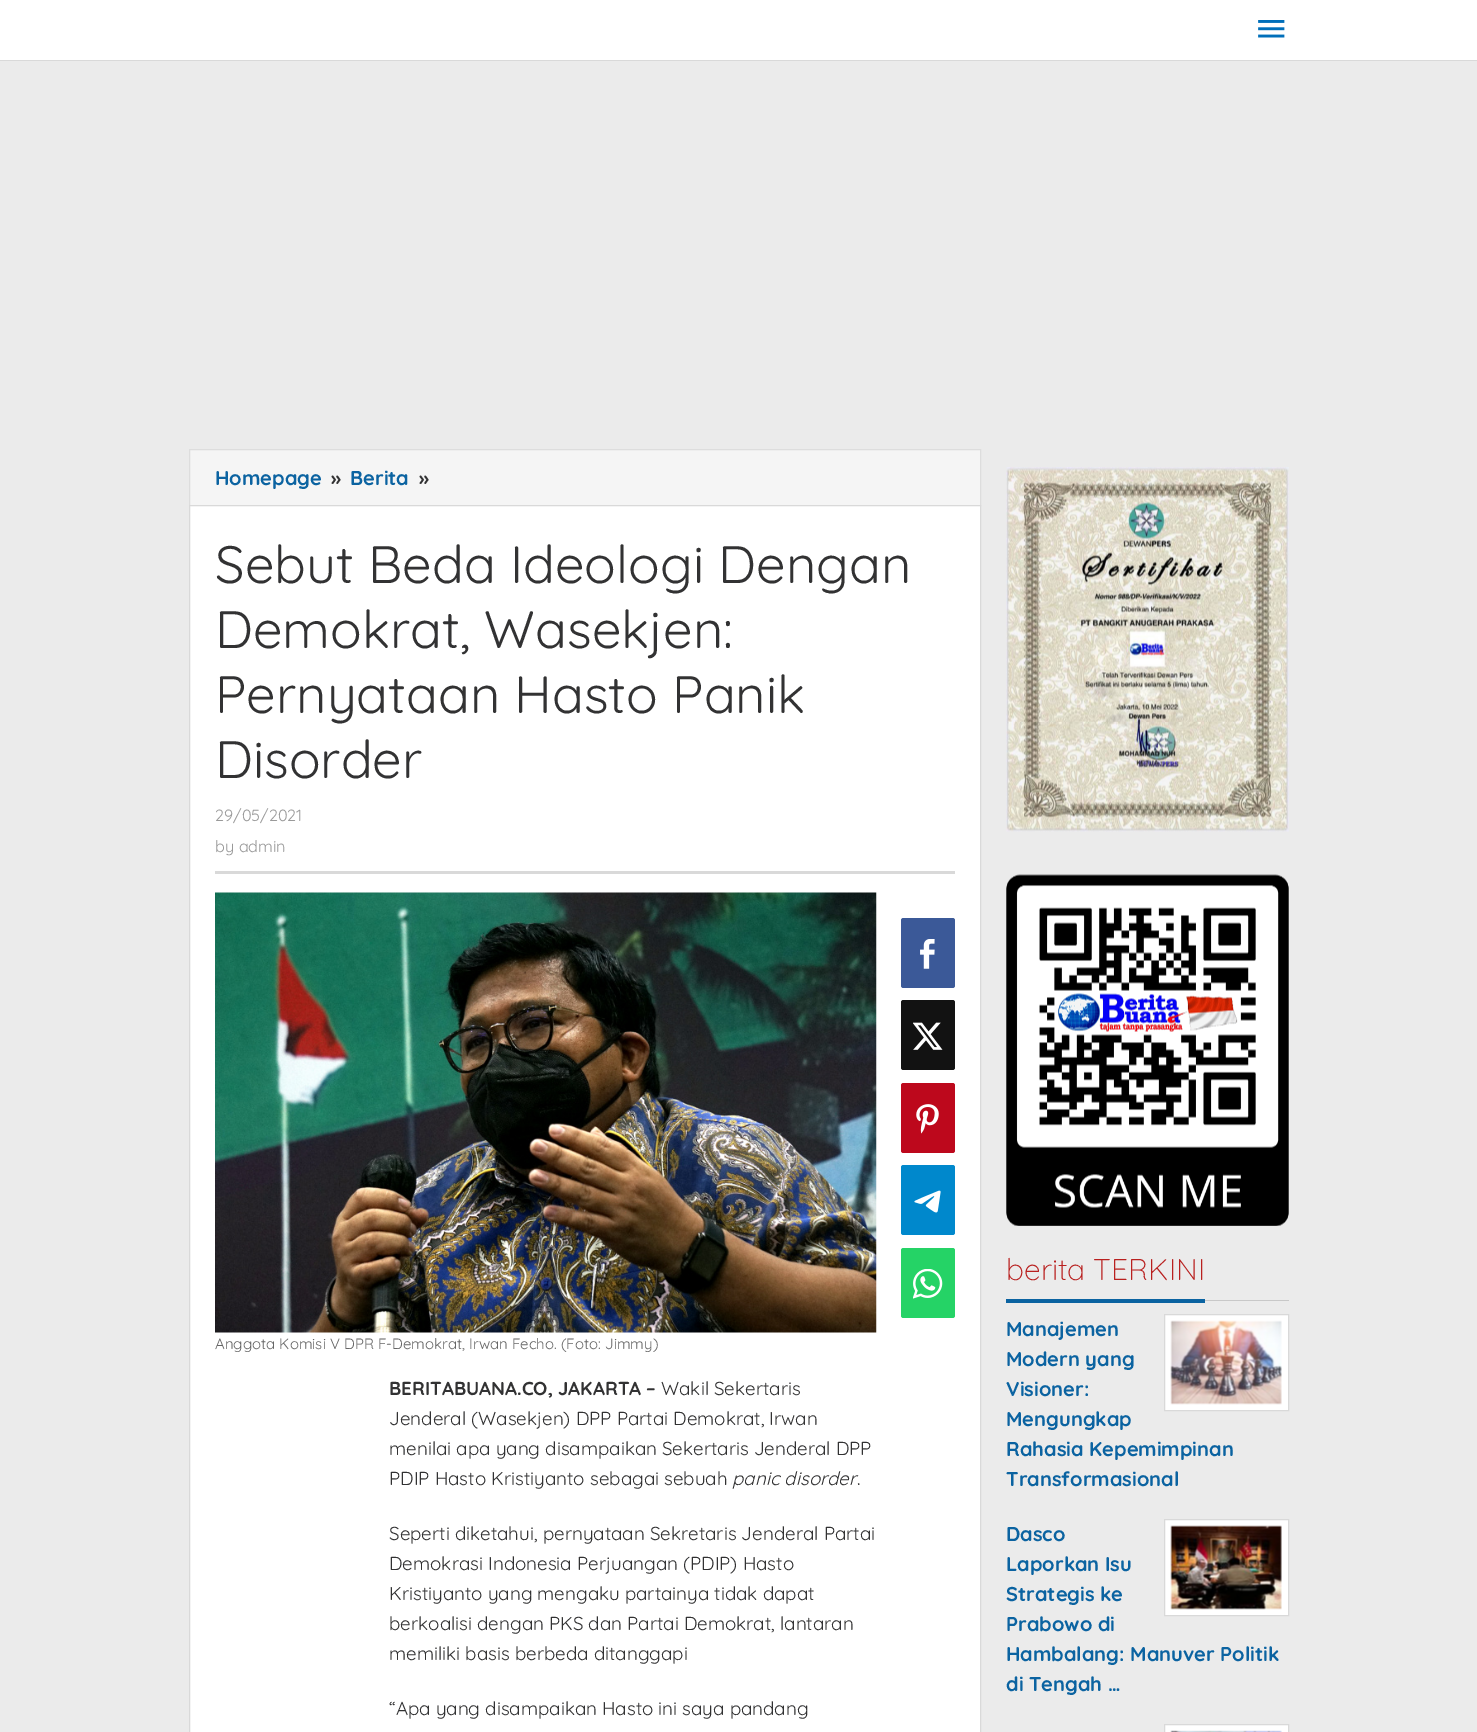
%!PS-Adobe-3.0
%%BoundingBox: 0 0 1477 1732
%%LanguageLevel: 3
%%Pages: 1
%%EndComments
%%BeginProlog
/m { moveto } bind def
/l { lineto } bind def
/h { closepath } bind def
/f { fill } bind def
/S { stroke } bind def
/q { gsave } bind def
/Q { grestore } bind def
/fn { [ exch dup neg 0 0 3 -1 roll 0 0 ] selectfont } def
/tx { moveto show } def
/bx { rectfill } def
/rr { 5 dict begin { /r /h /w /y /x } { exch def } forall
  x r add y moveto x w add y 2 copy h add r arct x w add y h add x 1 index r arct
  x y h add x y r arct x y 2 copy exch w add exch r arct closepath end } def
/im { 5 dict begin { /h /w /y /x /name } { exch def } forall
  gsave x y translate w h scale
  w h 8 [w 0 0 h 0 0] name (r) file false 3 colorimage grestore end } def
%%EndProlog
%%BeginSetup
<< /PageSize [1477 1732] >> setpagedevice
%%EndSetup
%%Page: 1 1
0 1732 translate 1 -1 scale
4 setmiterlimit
0.922 setgray
0 0 1477 1732 bx
1 setgray
0 0 1477 60 bx
0.851 setgray
0 60 1477 1 bx
(image0.raw) 1258 20 27 18 im
0.961 setgray
189.5 449.5 m 980.5 449.5 l 980.5 505.5 l 189.5 505.5 l h q f Q
0.867 setgray
S
/Quicksand-Bold 20 fn
0.043 0.388 0.631 setrgbcolor
(Homepage) 215 485 tx
0.196 0.196 0.2 setrgbcolor
(») 331 485 tx
0.043 0.388 0.631 setrgbcolor
(Berita) 350 485 tx
0.196 0.196 0.2 setrgbcolor
(») 419 485 tx
1 setgray
189.5 505.5 m 980.5 505.5 l 980.5 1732.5 l 189.5 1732.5 l h q f Q
0.851 setgray
S
215 871 740 3 bx
/Quicksand-Regular 52.5 fn
0.196 0.196 0.2 setrgbcolor
(Sebut Beda Ideologi Dengan) 215 583 tx
(Demokrat, Wasekjen:) 215 648 tx
(Pernyataan Hasto Panik) 215 713 tx
(Disorder) 215 778 tx
/Quicksand-Regular 16.25 fn
0.6 setgray
(29/05/2021) 215 821 tx
(by admin) 215 852 tx
0.231 0.349 0.596 setrgbcolor
901 918 54 70 2.5 rr f
(image1.raw) 920 939 15 30 im
0.071 setgray
901 1000 54 70 2.5 rr f
(image2.raw) 913 1022 30 28 im
0.741 0.031 0.11 setrgbcolor
901 1083 54 70 2.5 rr f
(image3.raw) 916 1104 23 30 im
0 0.533 0.8 setrgbcolor
901 1165 54 70 2.5 rr f
(image4.raw) 914 1190 27 23 im
0.145 0.827 0.4 setrgbcolor
901 1248 54 70 2.5 rr f
(image5.raw) 913 1269 30 30 im
(image6.raw) 215 892 662 441 im
/Quicksand-Regular 15 fn
0.4 setgray
(Anggota Komisi V DPR F-Demokrat, Irwan Fecho. \(Foto: Jimmy\)) 215 1349 tx
/Quicksand-Bold 18.75 fn
0.196 0.196 0.2 setrgbcolor
(BERITABUANA.CO, JAKARTA –) 389 1395 tx
/Quicksand-Regular 18.75 fn
(Wakil Sekertaris) 661 1395 tx
(Jenderal \(Wasekjen\) DPP Partai Demokrat, Irwan) 389 1425 tx
(menilai apa yang disampaikan Sekertaris Jenderal DPP) 389 1455 tx
(PDIP Hasto Kristiyanto sebagai sebuah) 389 1485 tx
/Quicksand-Italic 18.75 fn
(panic disorder) 732 1485 tx
/Quicksand-Regular 18.75 fn
(.) 857 1485 tx
(Seperti diketahui, pernyataan Sekretaris Jenderal Partai) 389 1540 tx
(Demokrasi Indonesia Perjuangan \(PDIP\) Hasto) 389 1570 tx
(Kristiyanto yang mengaku partainya tidak dapat) 389 1600 tx
(berkoalisi dengan PKS dan Partai Demokrat, lantaran) 389 1630 tx
(memiliki basis berbeda ditanggapi) 389 1660 tx
(“Apa yang disampaikan Hasto ini saya pandang) 389 1715 tx
(image7.raw) 1006 467 283 365 im
(image8.raw) 1006 874 283 352 im
0.784 setgray
1205 1300 84 1 bx
0.043 0.388 0.631 setrgbcolor
1006 1299 199 4 bx
/Quicksand-Light 30 fn
0.725 0.125 0.122 setrgbcolor
(berita TERKINI) 1006 1280 tx
/Quicksand-Bold 20 fn
0.043 0.388 0.631 setrgbcolor
(Manajemen) 1006 1336 tx
1 setgray
1164.5 1314.5 m 1288.5 1314.5 l 1288.5 1410.5 l 1164.5 1410.5 l h q f Q
0.851 setgray
S
(image9.raw) 1170 1320 112 85 im
0.043 0.388 0.631 setrgbcolor
(Modern yang) 1006 1366 tx
(Visioner:) 1006 1396 tx
(Mengungkap) 1006 1426 tx
(Rahasia Kepemimpinan) 1006 1456 tx
(Transformasional) 1006 1486 tx
(Dasco) 1006 1541 tx
1 setgray
1164.5 1519.5 m 1288.5 1519.5 l 1288.5 1615.5 l 1164.5 1615.5 l h q f Q
0.851 setgray
S
(image10.raw) 1170 1525 112 85 im
0.043 0.388 0.631 setrgbcolor
(Laporkan Isu) 1006 1571 tx
(Strategis ke) 1006 1601 tx
(Prabowo di) 1006 1631 tx
(Hambalang: Manuver Politik) 1006 1661 tx
(di Tengah …) 1006 1691 tx
1 setgray
1164.5 1724.5 m 1288.5 1724.5 l 1288.5 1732.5 l 1164.5 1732.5 l h q f Q
0.851 setgray
S
(image11.raw) 1170 1730 112 2 im
showpage
%%EOF
